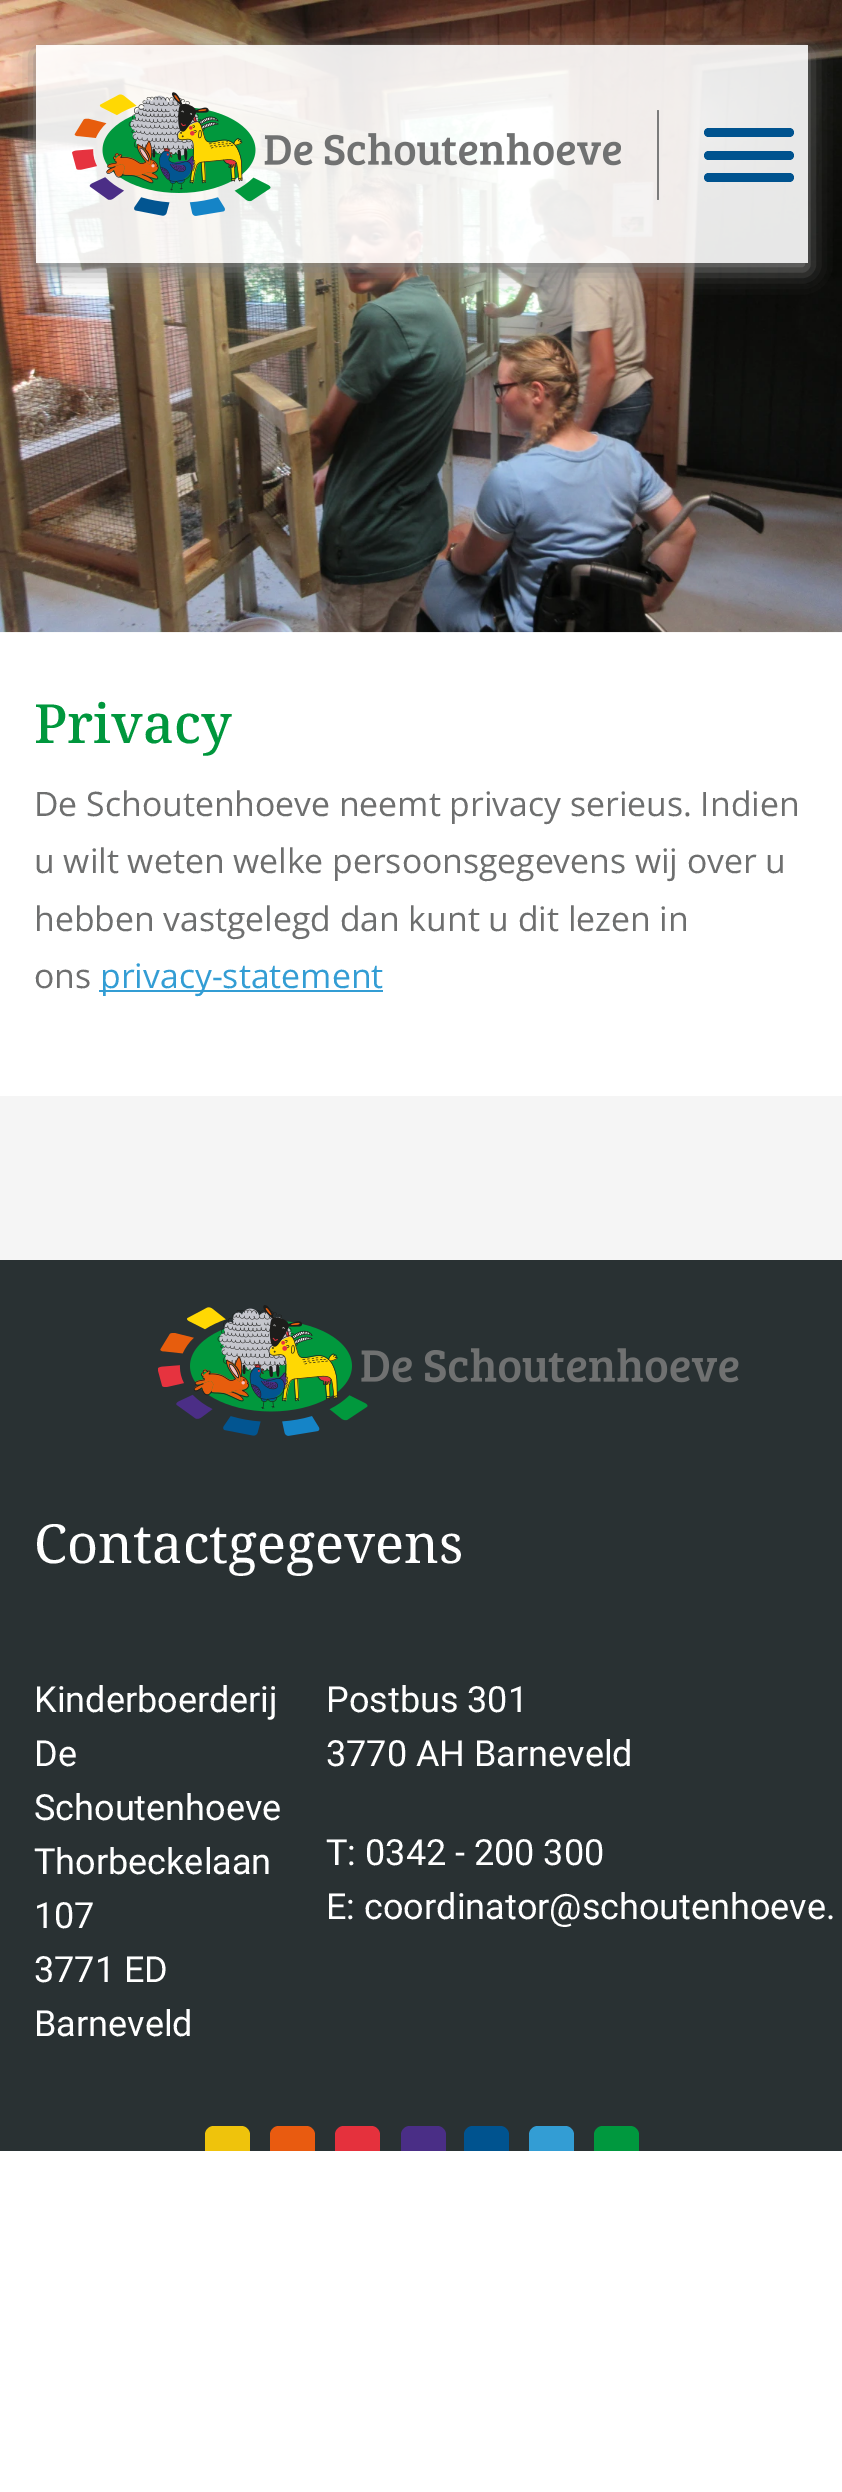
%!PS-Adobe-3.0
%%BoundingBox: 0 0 842 2492
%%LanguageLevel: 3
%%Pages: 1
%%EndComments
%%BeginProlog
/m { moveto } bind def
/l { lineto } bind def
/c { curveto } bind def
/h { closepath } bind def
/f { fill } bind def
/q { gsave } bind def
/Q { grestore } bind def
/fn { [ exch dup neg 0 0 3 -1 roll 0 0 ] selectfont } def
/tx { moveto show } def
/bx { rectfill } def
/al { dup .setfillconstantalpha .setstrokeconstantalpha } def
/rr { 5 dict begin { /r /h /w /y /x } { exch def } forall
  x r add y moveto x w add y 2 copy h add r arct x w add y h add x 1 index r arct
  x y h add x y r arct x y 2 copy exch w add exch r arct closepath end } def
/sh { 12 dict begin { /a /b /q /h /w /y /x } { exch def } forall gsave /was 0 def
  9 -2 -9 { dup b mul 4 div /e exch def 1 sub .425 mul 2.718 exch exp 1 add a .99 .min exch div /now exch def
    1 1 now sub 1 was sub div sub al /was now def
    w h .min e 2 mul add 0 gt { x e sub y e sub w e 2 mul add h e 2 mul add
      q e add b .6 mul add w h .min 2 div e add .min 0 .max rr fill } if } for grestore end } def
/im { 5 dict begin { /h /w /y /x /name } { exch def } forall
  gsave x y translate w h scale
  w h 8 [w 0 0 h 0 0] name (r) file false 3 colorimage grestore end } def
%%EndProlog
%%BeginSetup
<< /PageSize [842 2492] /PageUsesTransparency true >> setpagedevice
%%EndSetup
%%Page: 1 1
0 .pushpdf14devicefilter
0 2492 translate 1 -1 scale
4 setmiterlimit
1 setgray
0 0 842 2492 bx
(image1.raw) 0 0 842 633 im
q
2 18 m 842 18 l 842 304 l 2 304 l h 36 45 m 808 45 l 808 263 l 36 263 l h eoclip newpath
0.502 setgray
36 52 772 218 0 11 1 sh
Q
0.9 al
36 45 772 218 bx
1 al
(image0.raw) 72 92 549 124 im
0.9 al
0.431 0.435 0.435 setrgbcolor
657 110 2 90 1 rr f
1 al
0 0.325 0.561 setrgbcolor
704 128 90 9 4.5 rr f
704 151 90 9 4.5 rr f
704 173 90 9 4.5 rr f
/NotoSerif-Medium 54 fn
0 0.592 0.239 setrgbcolor
(Privacy) 34 743 tx
/OpenSans-Regular 33.75 fn
0.431 0.435 0.435 setrgbcolor
(De Schoutenhoeve neemt privacy serieus. Indien) 34 816 tx
(u wilt weten welke persoonsgegevens wij over u) 34 873 tx
(hebben vastgelegd dan kunt u dit lezen in) 34 931 tx
(ons) 34 988 tx
0.2 0.616 0.831 setrgbcolor
99 990 284 2 bx
(privacy-statement) 100 988 tx
0.961 setgray
0 1096 842 164 bx
0.161 0.192 0.2 setrgbcolor
0 1260 842 891 bx
(image2.raw) 158 1305 581 131 im
/NotoSerif-Regular 54 fn
1 setgray
(Contactgegevens) 34 1563 tx
/Roboto-Regular 36 fn
(Kinderboerderij) 34 1712 tx
(De) 34 1766 tx
(Schoutenhoeve) 34 1820 tx
(Thorbeckelaan) 34 1874 tx
(107) 34 1928 tx
(3771 ED) 34 1982 tx
(Barneveld) 34 2036 tx
(Postbus 301) 326 1712 tx
(3770 AH Barneveld) 326 1766 tx
(T: 0342 - 200 300) 326 1865 tx
(E: coordinator@schoutenhoeve.) 326 1919 tx
0.937 0.765 0.047 setrgbcolor
214 2126 m 241 2126 l 246 2126 250 2130 250 2135 c 250 2151 l 205 2151 l 205 2135 l 205 2130 209 2126 214 2126 c h f
0.914 0.357 0.063 setrgbcolor
279 2126 m 306 2126 l 311 2126 315 2130 315 2135 c 315 2151 l 270 2151 l 270 2135 l 270 2130 274 2126 279 2126 c h f
0.898 0.192 0.239 setrgbcolor
344 2126 m 371 2126 l 376 2126 380 2130 380 2135 c 380 2151 l 335 2151 l 335 2135 l 335 2130 339 2126 344 2126 c h f
0.29 0.18 0.525 setrgbcolor
410 2126 m 437 2126 l 442 2126 446 2130 446 2135 c 446 2151 l 401 2151 l 401 2135 l 401 2130 405 2126 410 2126 c h f
0 0.325 0.561 setrgbcolor
473 2126 m 500 2126 l 505 2126 509 2130 509 2135 c 509 2151 l 464 2151 l 464 2135 l 464 2130 468 2126 473 2126 c h f
0.2 0.616 0.831 setrgbcolor
538 2126 m 565 2126 l 570 2126 574 2130 574 2135 c 574 2151 l 529 2151 l 529 2135 l 529 2130 533 2126 538 2126 c h f
0 0.596 0.243 setrgbcolor
603 2126 m 630 2126 l 635 2126 639 2130 639 2135 c 639 2151 l 594 2151 l 594 2135 l 594 2130 598 2126 603 2126 c h f
.poppdf14devicefilter showpage
%%EOF
